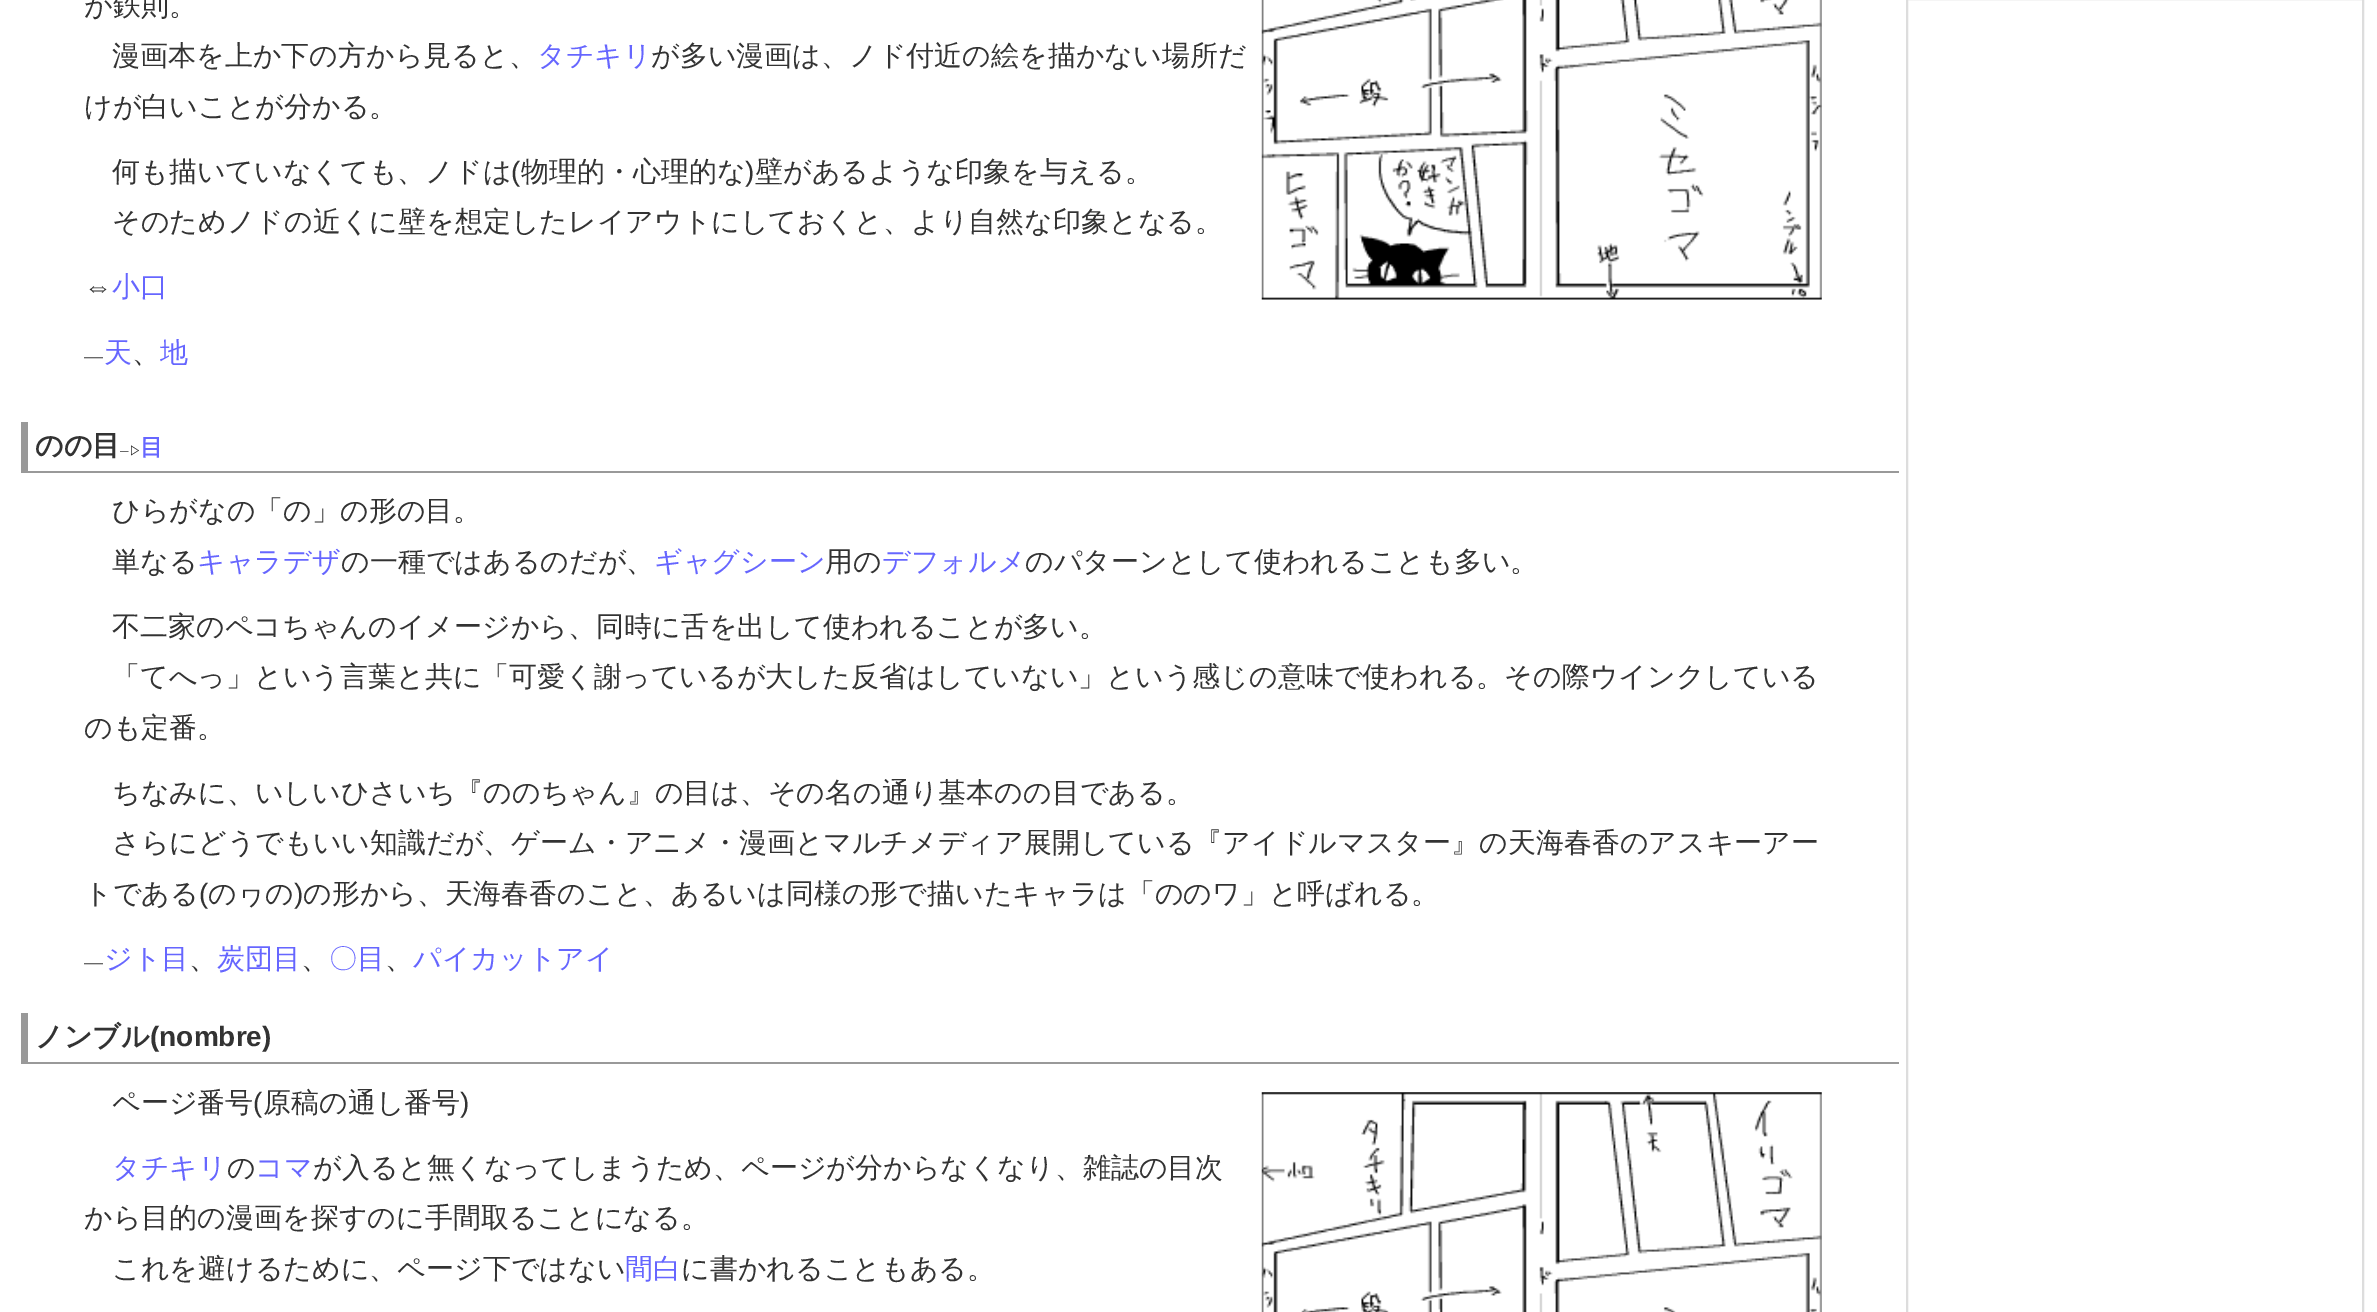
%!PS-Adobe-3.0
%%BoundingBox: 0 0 2377 1312
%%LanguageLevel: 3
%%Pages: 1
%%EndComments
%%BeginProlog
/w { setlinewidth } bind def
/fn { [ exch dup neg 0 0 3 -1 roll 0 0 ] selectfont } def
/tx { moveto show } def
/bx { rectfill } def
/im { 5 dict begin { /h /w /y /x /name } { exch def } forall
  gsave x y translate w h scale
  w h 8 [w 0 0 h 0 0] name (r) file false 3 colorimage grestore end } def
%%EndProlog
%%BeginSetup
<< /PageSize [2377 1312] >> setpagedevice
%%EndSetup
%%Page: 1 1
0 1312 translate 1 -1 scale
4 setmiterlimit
1 setgray
0 0 2377 1312 bx
/WenQuanYiZenHei-Medium 28 fn
0.2 setgray
(が鉄則。) 84 15 tx
(漫画本を上か下の方から見ると、) 112 65 tx
0.4 0.4 1 setrgbcolor
(タチキリ) 537 65 tx
0.2 setgray
(が多い漫画は、ノド付近の絵を描かない場所だ) 651 65 tx
(けが白いことが分かる。) 84 116 tx
(image0.raw) 1261 0 561 300 im
(何も描いていなくても、ノドは) 112 181 tx
/LiberationSans-Regular 28 fn
(\() 511 181 tx
/WenQuanYiZenHei-Medium 28 fn
(物理的・心理的な) 521 181 tx
/LiberationSans-Regular 28 fn
(\)) 745 181 tx
/WenQuanYiZenHei-Medium 28 fn
(壁があるような印象を与える。) 755 181 tx
(そのためノドの近くに壁を想定したレイアウトにしておくと、より自然な印象となる。) 112 231 tx
/LiberationSans-Regular 28 fn
(⇔) 84 296 tx
/WenQuanYiZenHei-Medium 28 fn
0.4 0.4 1 setrgbcolor
(小口) 112 296 tx
/LiberationSans-Regular 14 fn
0.2 setgray
(──) 84 362 tx
/WenQuanYiZenHei-Medium 28 fn
0.4 0.4 1 setrgbcolor
(天) 104 362 tx
1 setgray
103 357 1 2 bx
0.4 0.4 1 setrgbcolor
(地) 160 362 tx
0.2 setgray
(、) 132 362 tx
0.6 setgray
21 471 1878 2 bx
21 422 7 51 bx
/WenQuanYiZenHei-Bold 28 fn
0.2 setgray
(のの目) 35 455 tx
/LiberationSans-Bold 12 fn
(─) 120 455 tx
/WenQuanYiZenHei-Bold 12 fn
(▷) 129 455 tx
/WenQuanYiZenHei-Bold 23 fn
0.4 0.4 1 setrgbcolor
(目) 140 455 tx
/WenQuanYiZenHei-Medium 28 fn
0.2 setgray
(ひらがなの「の」の形の目。) 112 520 tx
(単なる) 112 571 tx
0.4 0.4 1 setrgbcolor
(キャラデザ) 197 571 tx
0.2 setgray
(の一種ではあるのだが、) 341 571 tx
0.4 0.4 1 setrgbcolor
(ギャグシーン) 654 571 tx
0.2 setgray
(用の) 825 571 tx
0.4 0.4 1 setrgbcolor
(デフォルメ) 882 571 tx
0.2 setgray
(のパターンとして使われることも多い。) 1025 571 tx
(不二家のペコちゃんのイメージから、同時に舌を出して使われることが多い。) 112 636 tx
(「てへっ」という言葉と共に「可愛く謝っているが大した反省はしていない」という感じの意味で使われる。その際ウインクしている) 112 686 tx
(のも定番。) 84 737 tx
(ちなみに、いしいひさいち『ののちゃん』の目は、その名の通り基本のの目である。) 112 802 tx
(さらにどうでもいい知識だが、ゲーム・アニメ・漫画とマルチメディア展開している『アイドルマスター』の天海春香のアスキーアー) 112 852 tx
(トである) 84 903 tx
/LiberationSans-Regular 28 fn
(\() 199 903 tx
/WenQuanYiZenHei-Medium 28 fn
(のヮの) 208 903 tx
/LiberationSans-Regular 28 fn
(\)) 294 903 tx
/WenQuanYiZenHei-Medium 28 fn
(の形から、天海春香のこと、あるいは同様の形で描いたキャラは「ののワ」と呼ばれる。) 303 903 tx
/LiberationSans-Regular 14 fn
(──) 84 968 tx
/WenQuanYiZenHei-Medium 28 fn
0.4 0.4 1 setrgbcolor
(ジト目) 104 968 tx
1 setgray
103 963 1 2 bx
0.4 0.4 1 setrgbcolor
(炭団目) 217 968 tx
(〇目) 329 968 tx
(パイカットアイ) 413 968 tx
0.2 setgray
(、) 189 968 tx
(、) 301 968 tx
(、) 385 968 tx
0.6 setgray
21 1062 1878 2 bx
21 1013 7 51 bx
/WenQuanYiZenHei-Bold 28 fn
0.2 setgray
(ノンブル) 35 1046 tx
/LiberationSans-Bold 28 fn
(\(nombre\)) 150 1046 tx
/WenQuanYiZenHei-Medium 28 fn
(ページ番号) 112 1112 tx
/LiberationSans-Regular 28 fn
(\() 253 1112 tx
/WenQuanYiZenHei-Medium 28 fn
(原稿の通し番号) 263 1112 tx
/LiberationSans-Regular 28 fn
(\)) 460 1112 tx
(image1.raw) 1261 1092 561 220 im
/WenQuanYiZenHei-Medium 28 fn
0.4 0.4 1 setrgbcolor
(タチキリ) 112 1177 tx
0.2 setgray
(の) 227 1177 tx
0.4 0.4 1 setrgbcolor
(コマ) 255 1177 tx
0.2 setgray
(が入ると無くなってしまうため、ページが分からなくなり、雑誌の目次) 313 1177 tx
(から目的の漫画を探すのに手間取ることになる。) 84 1227 tx
(これを避けるために、ページ下ではない) 112 1278 tx
0.4 0.4 1 setrgbcolor
(間白) 625 1278 tx
0.2 setgray
(に書かれることもある。) 681 1278 tx
0.867 setgray
2 w
1907 -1 456 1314 rectstroke
showpage
%%EOF
